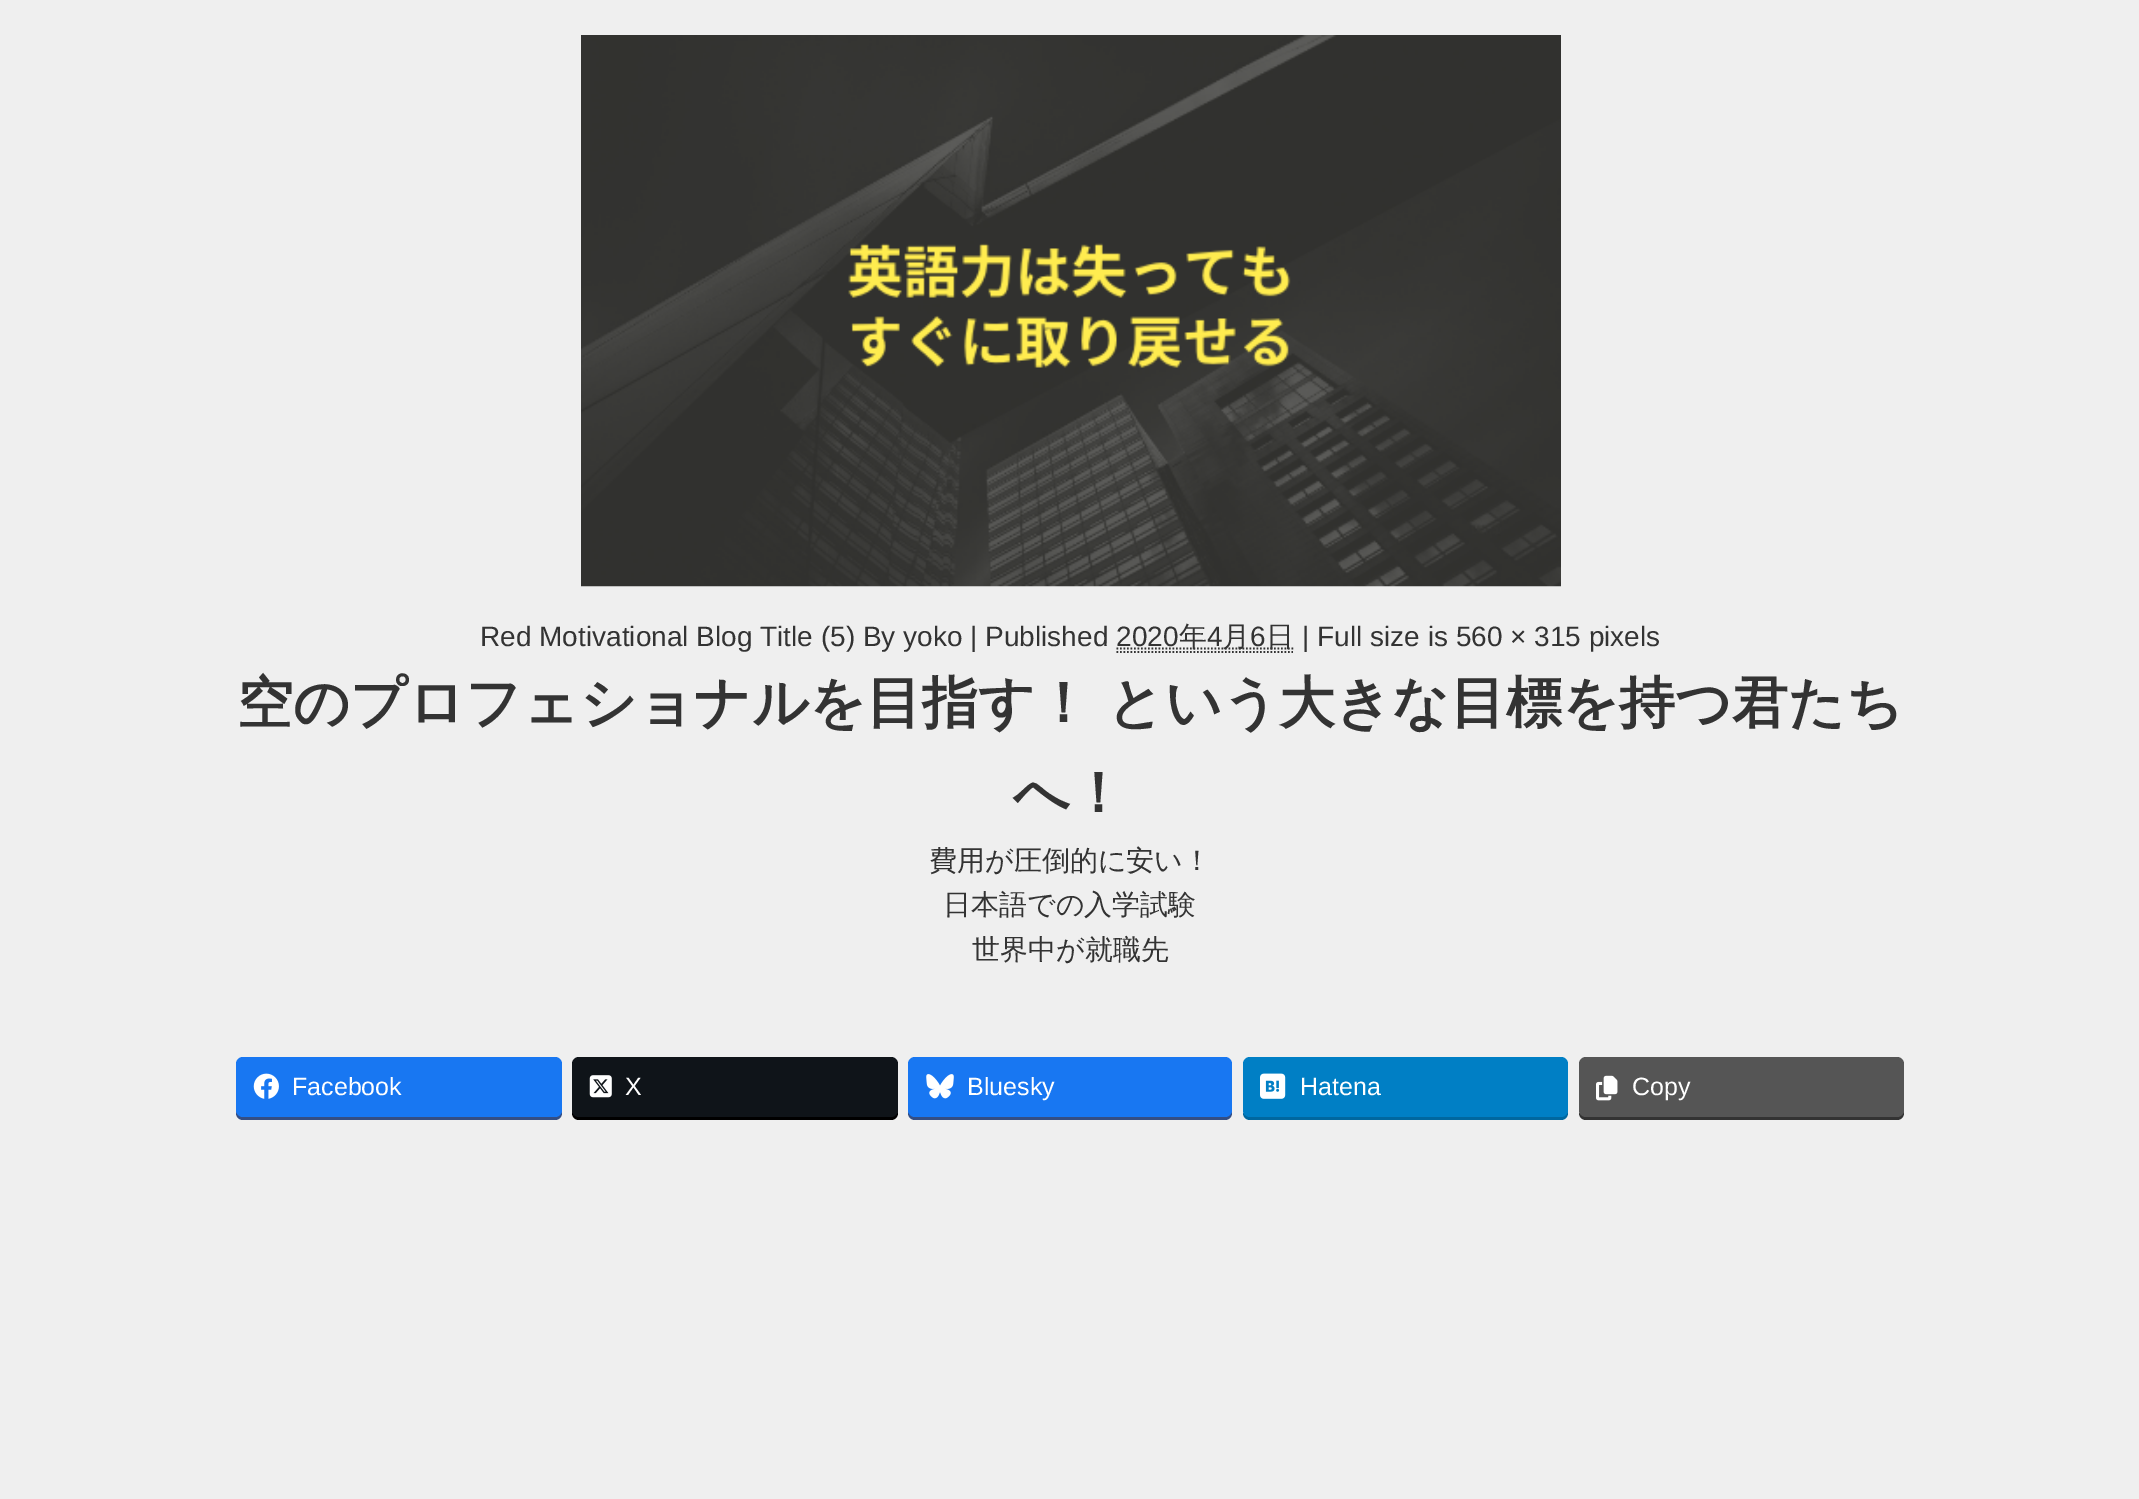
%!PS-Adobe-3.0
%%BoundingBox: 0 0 2139 1499
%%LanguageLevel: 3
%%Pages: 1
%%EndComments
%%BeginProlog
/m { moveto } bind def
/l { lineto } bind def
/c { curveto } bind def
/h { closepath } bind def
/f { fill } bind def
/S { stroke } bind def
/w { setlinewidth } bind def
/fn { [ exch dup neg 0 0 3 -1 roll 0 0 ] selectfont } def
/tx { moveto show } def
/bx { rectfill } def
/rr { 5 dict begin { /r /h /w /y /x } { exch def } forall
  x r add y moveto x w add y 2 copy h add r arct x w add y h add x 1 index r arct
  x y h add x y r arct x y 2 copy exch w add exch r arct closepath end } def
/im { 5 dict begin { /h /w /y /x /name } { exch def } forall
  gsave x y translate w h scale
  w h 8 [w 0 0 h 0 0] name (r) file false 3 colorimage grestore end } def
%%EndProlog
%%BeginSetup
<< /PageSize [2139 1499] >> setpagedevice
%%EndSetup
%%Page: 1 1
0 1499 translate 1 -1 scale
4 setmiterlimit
0.937 setgray
0 0 2139 1499 bx
(image0.raw) 581 35 980 552 im
/LiberationSans-Regular 28 fn
0.2 setgray
(Red Motivational Blog Title \(5\) By yoko | Published 2020) 480 646 tx
1.8 w
[1.75 1.75] 0 setdash
1116.5 648.5 m 1294 648.5 l S
/WenQuanYiZenHei-Medium 28 fn
(年) 1179 646 tx
/LiberationSans-Regular 28 fn
(4) 1207 646 tx
/WenQuanYiZenHei-Medium 28 fn
(月) 1222 646 tx
1116.5 652 m 1293 652 l S
/LiberationSans-Regular 28 fn
(6) 1250 646 tx
/WenQuanYiZenHei-Medium 28 fn
(日) 1266 646 tx
/LiberationSans-Regular 28 fn
(| Full size is 560 × 315 pixels) 1302 646 tx
/WenQuanYiZenHei-Bold 56 fn
237 722 m -1 0 32 (空のプロフェショナルを目指す！ という大きな目標を持つ君たち) widthshow
(へ！) 1013 812 tx
/WenQuanYiZenHei-Medium 28 fn
(費用が圧倒的に安い！) 929 870 tx
(日本語での入学試験) 943 914 tx
(世界中が就職先) 972 959 tx
0.204 0.306 0.518 setrgbcolor
236 1066 m 236 1113 l 236 1117 239 1120 243 1120 c 555 1120 l 559 1120 562 1117 562 1113 c 562 1066 l 562 1110 l 562 1113 559 1116 555 1116 c 243 1116 l 239 1116 236 1113 236 1110 c h f
0.094 0.467 0.949 setrgbcolor
236 1057 326 60 7 rr f
(image1.raw) 253 1073 26 26 im
/LiberationSans-Regular 25 fn
1 setgray
(Facebook) 292 1095 tx
0 setgray
572 1066 m 572 1113 l 572 1117 575 1120 579 1120 c 891 1120 l 895 1120 898 1117 898 1113 c 898 1066 l 898 1110 l 898 1113 895 1116 891 1116 c 579 1116 l 575 1116 572 1113 572 1110 c h f
0.059 0.078 0.098 setrgbcolor
572 1057 326 60 7 rr f
(image2.raw) 589 1075 23 23 im
1 setgray
(X) 625 1095 tx
0.204 0.306 0.518 setrgbcolor
908 1066 m 908 1113 l 908 1117 911 1120 915 1120 c 1225 1120 l 1229 1120 1232 1117 1232 1113 c 1232 1110 l 1232 1113 1229 1116 1225 1116 c 915 1116 l 911 1116 908 1113 908 1110 c h f
0.094 0.467 0.949 setrgbcolor
908 1057 324 60 7 rr f
(image3.raw) 926 1074 28 25 im
1 setgray
(Bluesky) 967 1095 tx
0 0.404 0.624 setrgbcolor
1243 1112 m 1243 1113 l 1243 1117 1246 1120 1250 1120 c 1561 1120 l 1565 1120 1568 1117 1568 1113 c 1568 1110 l 1568 1113 1565 1116 1561 1116 c 1250 1116 l 1247 1116 1244 1115 1243 1112 c h f
0 0.498 0.773 setrgbcolor
1243 1057 325 60 7 rr f
(image4.raw) 1260 1073 26 26 im
1 setgray
(Hatena) 1300 1095 tx
0.2 setgray
1579 1112 m 1579 1113 l 1579 1117 1582 1120 1586 1120 c 1897 1120 l 1901 1120 1904 1117 1904 1113 c 1904 1110 l 1904 1113 1901 1116 1897 1116 c 1586 1116 l 1583 1116 1580 1115 1579 1112 c h f
0.333 setgray
1579 1057 325 60 7 rr f
(image5.raw) 1596 1075 22 26 im
1 setgray
(Copy) 1632 1095 tx
showpage
%%EOF
